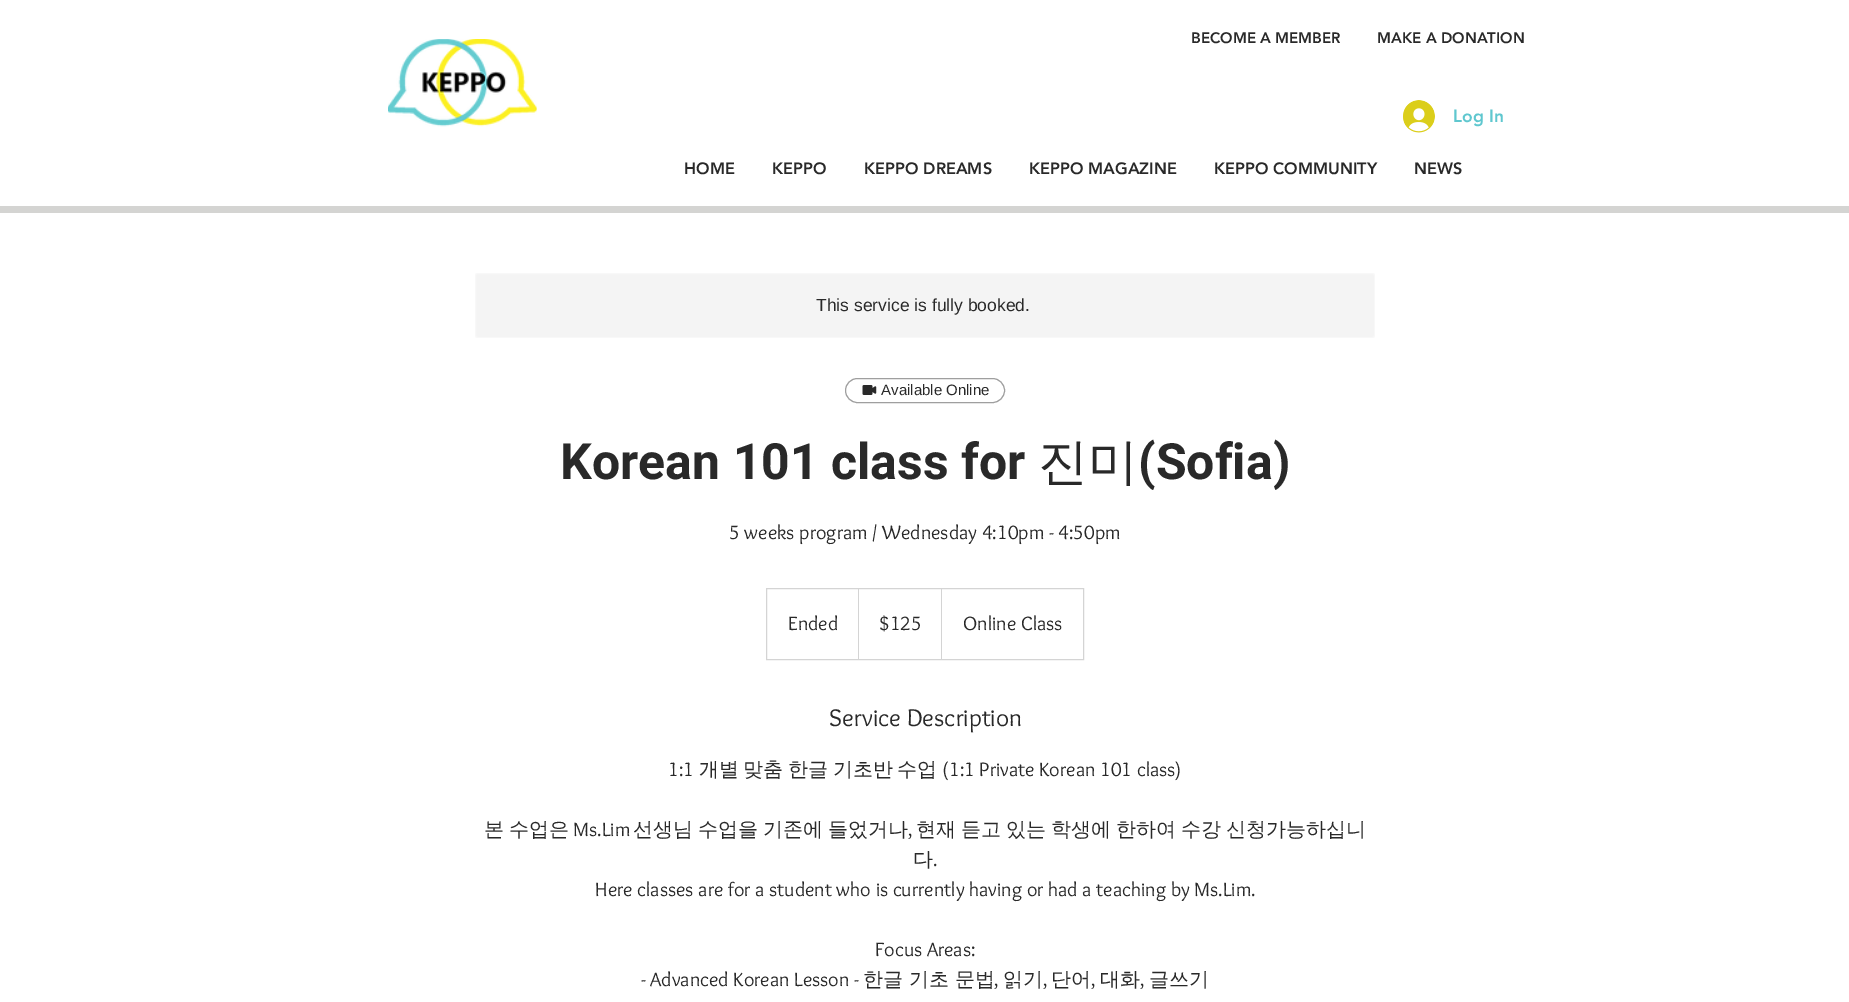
%!PS-Adobe-3.0
%%BoundingBox: 0 0 1849 1002
%%LanguageLevel: 3
%%Pages: 1
%%EndComments
%%BeginProlog
/m { moveto } bind def
/l { lineto } bind def
/h { closepath } bind def
/f { fill } bind def
/S { stroke } bind def
/fn { [ exch dup neg 0 0 3 -1 roll 0 0 ] selectfont } def
/tx { moveto show } def
/bx { rectfill } def
/al { dup .setfillconstantalpha .setstrokeconstantalpha } def
/rr { 5 dict begin { /r /h /w /y /x } { exch def } forall
  x r add y moveto x w add y 2 copy h add r arct x w add y h add x 1 index r arct
  x y h add x y r arct x y 2 copy exch w add exch r arct closepath end } def
/im { 5 dict begin { /h /w /y /x /name } { exch def } forall
  gsave x y translate w h scale
  w h 8 [w 0 0 h 0 0] name (r) file false 3 colorimage grestore end } def
%%EndProlog
%%BeginSetup
<< /PageSize [1849 1002] /PageUsesTransparency true >> setpagedevice
%%EndSetup
%%Page: 1 1
0 .pushpdf14devicefilter
0 1002 translate 1 -1 scale
4 setmiterlimit
1 setgray
0 0 1849 1002 bx
(image0.raw) 388 39 149 88 im
/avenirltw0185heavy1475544-Black 15 fn
0.161 setgray
(BECOME A MEMBER) 1191 43 tx
(MAKE A DONATION) 1377 43 tx
(image1.raw) 1403 100 32 33 im
/avenirltw0185heavy1475544-Black 17.5 fn
0.373 0.78 0.812 setrgbcolor
(Log In) 1453 122 tx
/avenirltw0185heavy1475544-Black 16.25 fn
0.161 setgray
(HOME) 684 174 tx
(KEPPO) 772 174 tx
(KEPPO DREAMS) 864 174 tx
(KEPPO MAGAZINE) 1029 174 tx
(KEPPO COMMUNITY) 1214 174 tx
(NEWS) 1414 174 tx
0.831 0.831 0.824 setrgbcolor
0 206 1849 7 bx
0.957 setgray
475 273 900 65 2.5 rr f
0.4 al
1 setgray
475.5 273.5 899 64 2 rr S
/LiberationSans-Regular 17.5 fn
1 al
0.161 setgray
(This service is fully booked.) 816 311 tx
0.624 setgray
845.5 378.5 159 24 12 rr S
(image2.raw) 862 385 15 10 im
/LiberationSans-Regular 15 fn
0.161 setgray
(Available Online) 881 395 tx
/Roboto-Bold 50 fn
(Korean 101 class for) 560 479 tx
/WenQuanYiZenHei-Medium 50 fn
(진미) 1038 479 tx
/Roboto-Bold 50 fn
(\(Sofia\)) 1138 479 tx
/Overlock-Regular 20 fn
(5 weeks program / Wednesday 4:10pm - 4:50pm) 729 539 tx
0.831 setgray
766.5 588.5 317 71 rectstroke
0.161 setgray
(Ended) 788 630 tx
0.831 setgray
858 659 m 858 588 l 859 589 l 859 659 l h f
0.161 setgray
($125) 879 630 tx
0.831 setgray
941 659 m 941 588 l 942 589 l 942 659 l h f
0.161 setgray
(Online Class) 963 630 tx
/Overlock-Regular 25 fn
(Service Description) 829 726 tx
/Overlock-Regular 20 fn
(1:1) 668 776 tx
/WenQuanYiZenHei-Medium 20 fn
(개별) 699 776 tx
(맞춤) 743 776 tx
(한글) 788 776 tx
(기초반) 833 776 tx
(수업) 897 776 tx
/Overlock-Regular 20 fn
(\(1:1 Private Korean 101 class\)) 942 776 tx
/WenQuanYiZenHei-Medium 20 fn
484 836 m -1 0 32 (본 수업은) widthshow
/Overlock-Regular 20 fn
(Ms.Lim) 573 836 tx
/WenQuanYiZenHei-Medium 20 fn
633 836 m -1 0 32 (선생님 수업을 기존에 들었거나) widthshow
/Overlock-Regular 20 fn
(,) 908 836 tx
/WenQuanYiZenHei-Medium 20 fn
916 836 m -1 0 32 (현재 듣고 있는 학생에 한하여 수강 신청가능하십니) widthshow
(다) 913 866 tx
/Overlock-Regular 20 fn
(.) 933 866 tx
(Here classes are for a student who is currently having or had a teaching by Ms.Lim.) 595 896 tx
(Focus Areas:) 875 956 tx
(- Advanced Korean Lesson -) 641 986 tx
/WenQuanYiZenHei-Medium 20 fn
(한글 기초 문법) 863 986 tx
/Overlock-Regular 20 fn
(,) 994 986 tx
/WenQuanYiZenHei-Medium 20 fn
(읽기) 1003 986 tx
/Overlock-Regular 20 fn
(,) 1043 986 tx
/WenQuanYiZenHei-Medium 20 fn
(단어) 1051 986 tx
/Overlock-Regular 20 fn
(,) 1091 986 tx
/WenQuanYiZenHei-Medium 20 fn
(대화) 1100 986 tx
/Overlock-Regular 20 fn
(,) 1140 986 tx
/WenQuanYiZenHei-Medium 20 fn
(글쓰기) 1149 986 tx
.poppdf14devicefilter showpage
%%EOF
